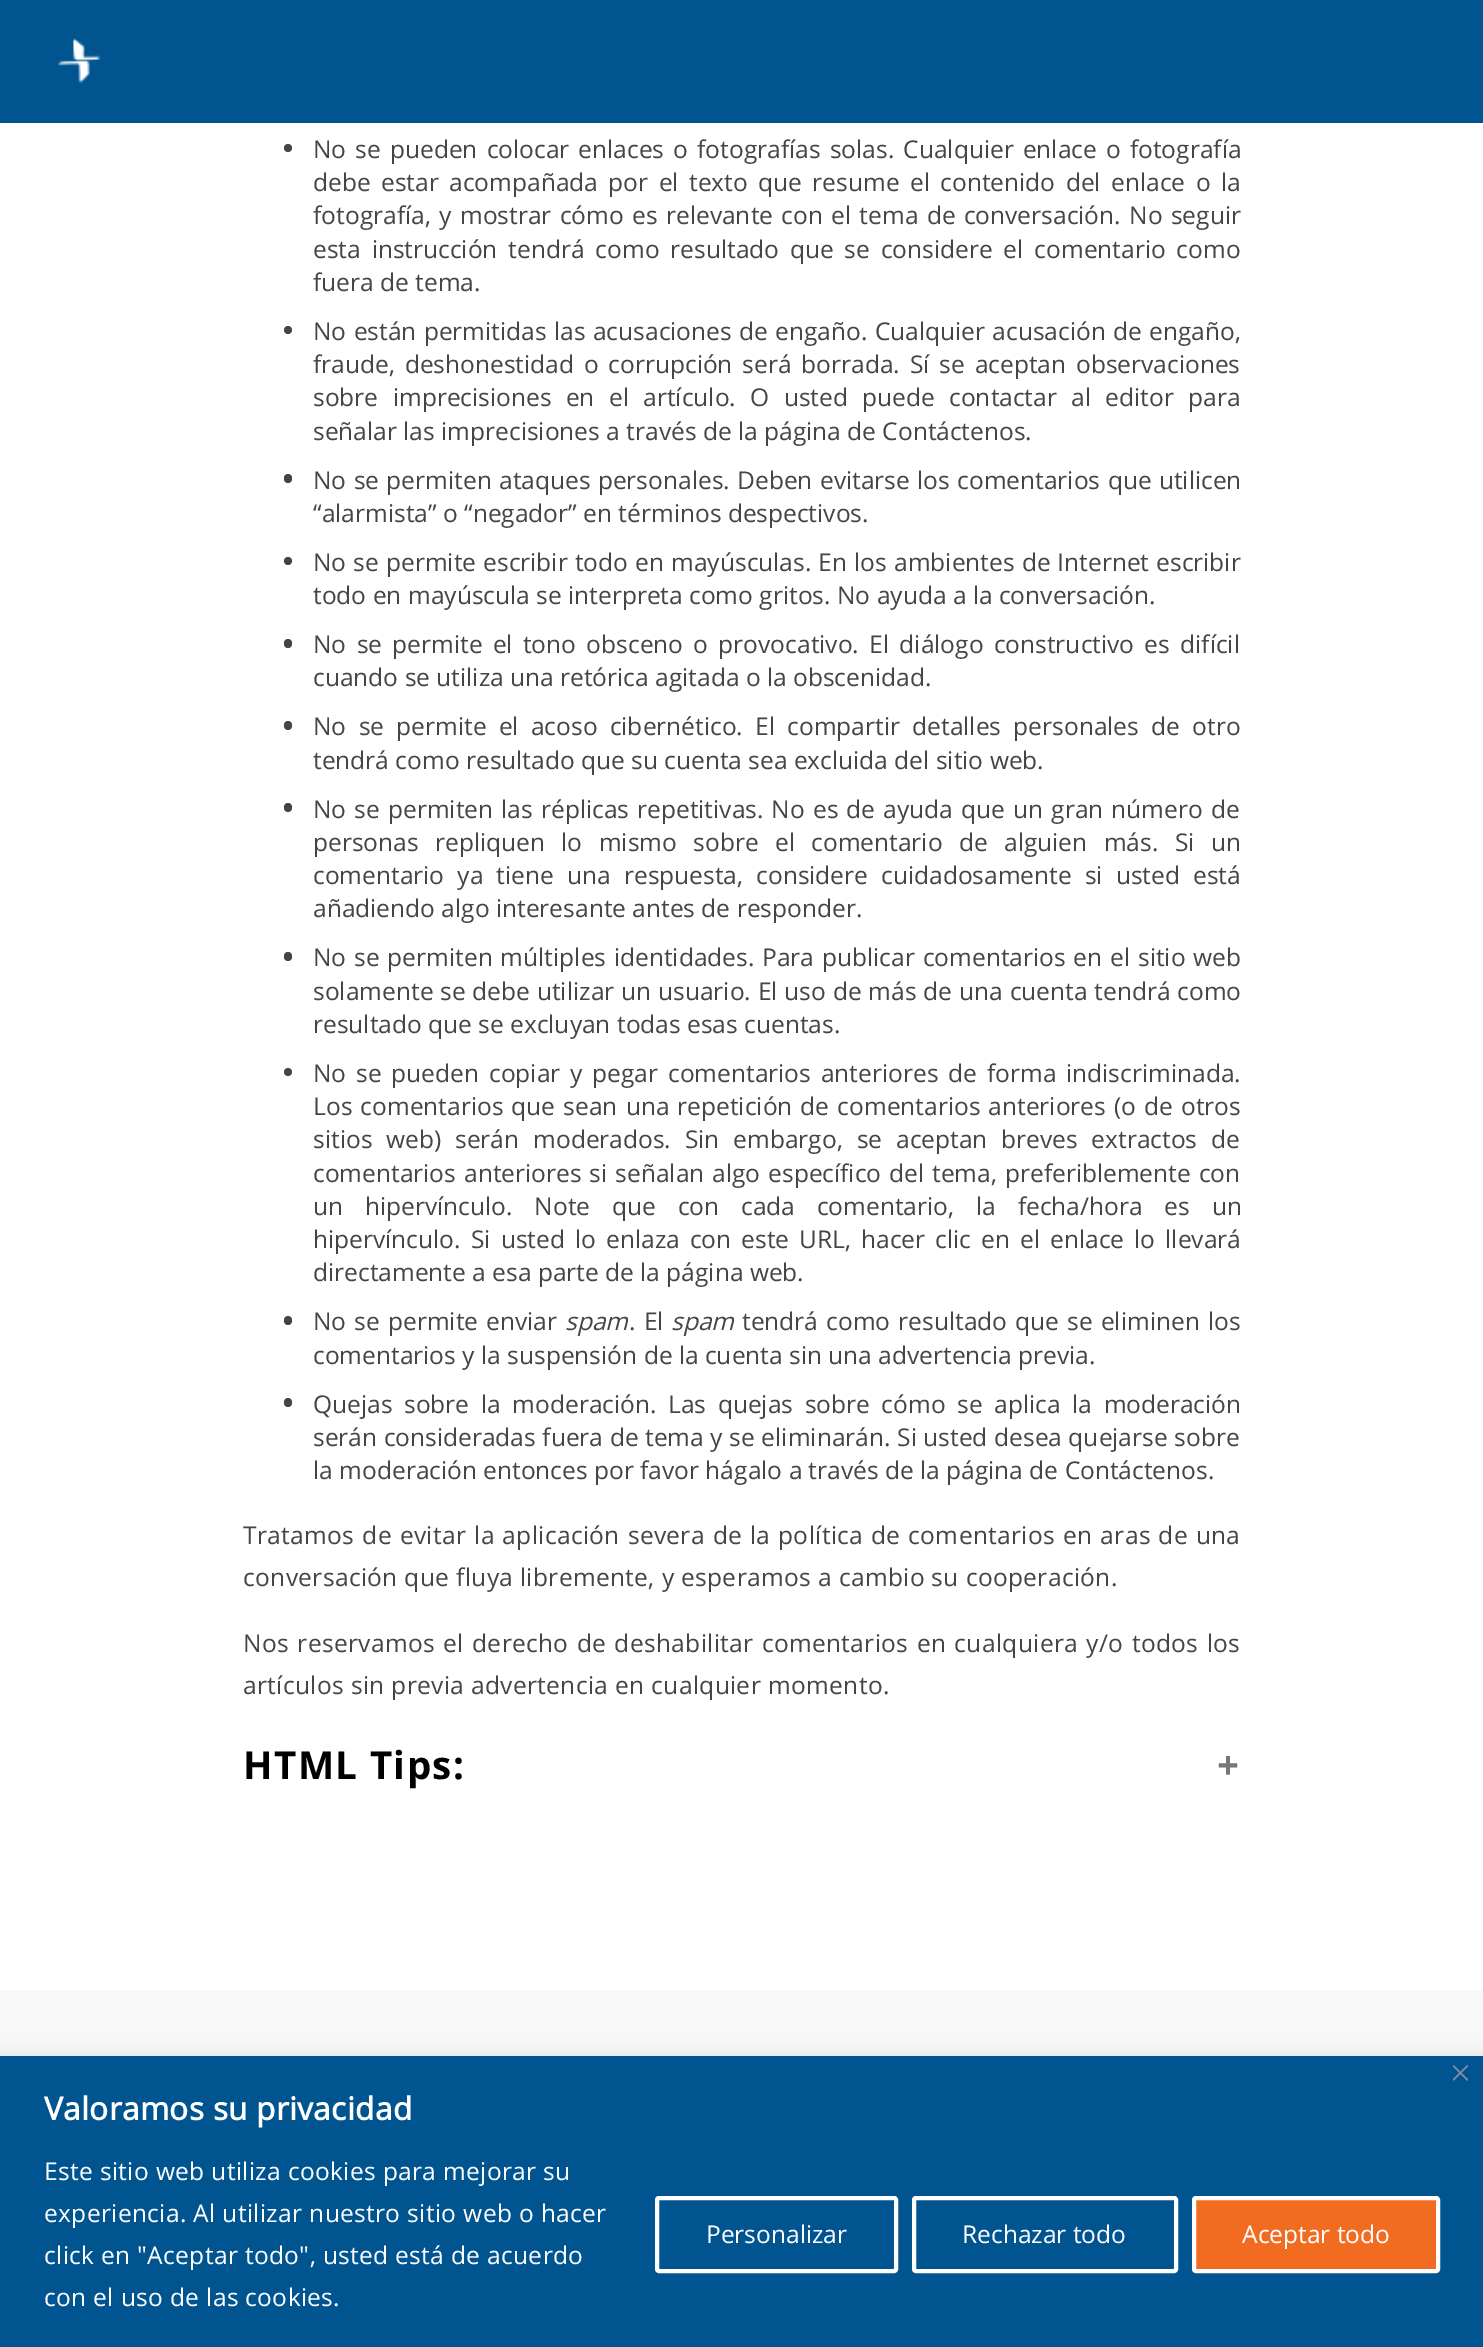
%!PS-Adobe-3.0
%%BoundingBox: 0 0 1483 2347
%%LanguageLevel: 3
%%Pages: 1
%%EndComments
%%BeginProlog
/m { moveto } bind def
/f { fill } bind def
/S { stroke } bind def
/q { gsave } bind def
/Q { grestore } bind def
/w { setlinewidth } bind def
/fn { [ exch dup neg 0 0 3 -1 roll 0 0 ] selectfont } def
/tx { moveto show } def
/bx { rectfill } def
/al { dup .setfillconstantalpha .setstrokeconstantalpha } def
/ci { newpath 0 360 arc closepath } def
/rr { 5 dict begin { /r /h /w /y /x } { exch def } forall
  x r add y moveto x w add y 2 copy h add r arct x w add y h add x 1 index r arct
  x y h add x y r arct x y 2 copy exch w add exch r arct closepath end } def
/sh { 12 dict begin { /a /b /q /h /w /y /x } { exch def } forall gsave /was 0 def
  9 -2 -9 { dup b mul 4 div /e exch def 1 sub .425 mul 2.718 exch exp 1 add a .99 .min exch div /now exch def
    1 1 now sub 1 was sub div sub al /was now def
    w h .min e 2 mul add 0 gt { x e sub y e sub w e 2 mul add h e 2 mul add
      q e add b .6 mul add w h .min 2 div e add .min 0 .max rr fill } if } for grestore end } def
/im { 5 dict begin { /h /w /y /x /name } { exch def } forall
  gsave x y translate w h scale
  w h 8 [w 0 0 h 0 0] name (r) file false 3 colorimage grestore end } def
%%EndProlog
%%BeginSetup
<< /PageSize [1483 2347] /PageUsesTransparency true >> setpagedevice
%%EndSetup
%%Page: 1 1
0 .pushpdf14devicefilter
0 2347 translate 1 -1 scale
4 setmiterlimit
1 setgray
0 0 1483 2347 bx
0 0.329 0.561 setrgbcolor
0 0 1483 123 bx
(image0.raw) 57 38 44 45 im
0.271 setgray
288 148 4 ci f
/OpenSans-Regular 24.5 fn
313 158 m 2.75 0 32 (No se pueden colocar enlaces o fotografías solas. Cualquier enlace o fotografía) widthshow
313 191 m 4.1 0 32 (debe estar acompañada por el texto que resume el contenido del enlace o la) widthshow
313 224 m 2 0 32 (fotografía, y mostrar cómo es relevante con el tema de conversación. No seguir) widthshow
313 258 m 4.5 0 32 (esta instrucción tendrá como resultado que se considere el comentario como) widthshow
(fuera de tema.) 313 291 tx
288 330 4 ci f
313 340 m 1 0 32 (No están permitidas las acusaciones de engaño. Cualquier acusación de engaño,) widthshow
313 373 m 3.5 0 32 (fraude, deshonestidad o corrupción será borrada. Sí se aceptan observaciones) widthshow
313 406 m 8 0 32 (sobre imprecisiones en el artículo. O usted puede contactar al editor para) widthshow
(señalar las imprecisiones a través de la página de Contáctenos.) 313 440 tx
284 474 8 9 4 rr f
313 489 m 1 0 32 (No se permiten ataques personales. Deben evitarse los comentarios que utilicen) widthshow
(“alarmista” o “negador” en términos despectivos.) 313 522 tx
288 561 4 ci f
313 571 m 0.75 0 32 (No se permite escribir todo en mayúsculas. En los ambientes de Internet escribir) widthshow
(todo en mayúscula se interpreta como gritos. No ayuda a la conversación.) 313 604 tx
284 639 8 9 4 rr f
313 653 m 3.9 0 32 (No se permite el tono obsceno o provocativo. El diálogo constructivo es difícil) widthshow
(cuando se utiliza una retórica agitada o la obscenidad.) 313 686 tx
284 721 8 9 4 rr f
313 735 m 5.9 0 32 (No se permite el acoso cibernético. El compartir detalles personales de otro) widthshow
(tendrá como resultado que su cuenta sea excluida del sitio web.) 313 769 tx
284 803 8 9 4 rr f
313 818 m 1.75 0 32 (No se permiten las réplicas repetitivas. No es de ayuda que un gran número de) widthshow
313 851 m 10 0 32 (personas repliquen lo mismo sobre el comentario de alguien más. Si un) widthshow
313 884 m 6.75 0 32 (comentario ya tiene una respuesta, considere cuidadosamente si usted está) widthshow
(añadiendo algo interesante antes de responder.) 313 917 tx
284 952 8 9 4 rr f
313 966 m 1.5 0 32 (No se permiten múltiples identidades. Para publicar comentarios en el sitio web) widthshow
313 1000 m 0.5 0 32 (solamente se debe utilizar un usuario. El uso de más de una cuenta tendrá como) widthshow
(resultado que se excluyan todas esas cuentas.) 313 1033 tx
288 1072 4 ci f
313 1082 m 3.5 0 32 (No se pueden copiar y pegar comentarios anteriores de forma indiscriminada.) widthshow
313 1115 m 1.75 0 32 (Los comentarios que sean una repetición de comentarios anteriores \(o de otros) widthshow
313 1148 m 7.5 0 32 (sitios web\) serán moderados. Sin embargo, se aceptan breves extractos de) widthshow
313 1182 m 1.6 0 32 (comentarios anteriores si señalan algo específico del tema, preferiblemente con) widthshow
313 1215 m 15.5 0 32 (un hipervínculo. Note que con cada comentario, la fecha/hora es un) widthshow
313 1248 m 3.75 0 32 (hipervínculo. Si usted lo enlaza con este URL, hacer clic en el enlace lo llevará) widthshow
(directamente a esa parte de la página web.) 313 1281 tx
284 1316 8 9 4 rr f
313 1330 m 1.75 0 32 (No se permite enviar) widthshow
/OpenSans-Italic 24.5 fn
(spam) 565 1330 tx
/OpenSans-Regular 24.5 fn
629 1330 m 1.75 0 32 (. El) widthshow
/OpenSans-Italic 24.5 fn
(spam) 671 1330 tx
/OpenSans-Regular 24.5 fn
742 1330 m 1.75 0 32 (tendrá como resultado que se eliminen los) widthshow
(comentarios y la suspensión de la cuenta sin una advertencia previa.) 313 1364 tx
284 1398 8 9 4 rr f
313 1413 m 5.25 0 32 (Quejas sobre la moderación. Las quejas sobre cómo se aplica la moderación) widthshow
313 1446 m 0.25 0 32 (serán consideradas fuera de tema y se eliminarán. Si usted desea quejarse sobre) widthshow
(la moderación entonces por favor hágalo a través de la página de Contáctenos.) 313 1479 tx
243 1544 m 1.1 0 32 0.35 0 (Tratamos de evitar la aplicación severa de la política de comentarios en aras de una) awidthshow
243 1586 m 0.35 0 (conversación que fluya libremente, y esperamos a cambio su cooperación.) ashow
243 1652 m 1.5 0 32 0.35 0 (Nos reservamos el derecho de deshabilitar comentarios en cualquiera y/o todos los) awidthshow
243 1694 m 0.35 0 (artículos sin previa advertencia en cualquier momento.) ashow
/OpenSans-Bold 38.5 fn
0 setgray
243 1779 m 1.4 0 (HTML Tips:) ashow
0.467 setgray
1217 1779 m 1.4 0 (+) ashow
0.973 setgray
0 1990 1483 66 bx
0.675 0.671 0.671 setrgbcolor
0 2055 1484 292 0 9 0.3 sh
0 0.329 0.561 setrgbcolor
0 2056 1483 291 bx
(image1.raw) 1453 2065 15 16 im
/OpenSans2-Bold 31.5 fn
1 setgray
44 2120 m 0.35 0 (Valoramos su privacidad) ashow
/OpenSans-Regular 24.5 fn
44 2180 m 0.35 0 (Este sitio web utiliza cookies para mejorar su) ashow
44 2222 m 0.35 0 (experiencia. Al utilizar nuestro sitio web o hacer) ashow
44 2264 m 0.35 0 (click en "Aceptar todo", usted está de acuerdo) ashow
44 2306 m 0.35 0 (con el uso de las cookies.) ashow
4 w
657 2198 239 73 2 rr S
(Personalizar) 706 2243 tx
914 2198 262 73 2 rr S
(Rechazar todo) 962 2243 tx
0.945 0.424 0.125 setrgbcolor
1194 2198 244 73 2 rr q f Q
1 setgray
S
(Aceptar todo) 1242 2243 tx
.poppdf14devicefilter showpage
%%EOF
